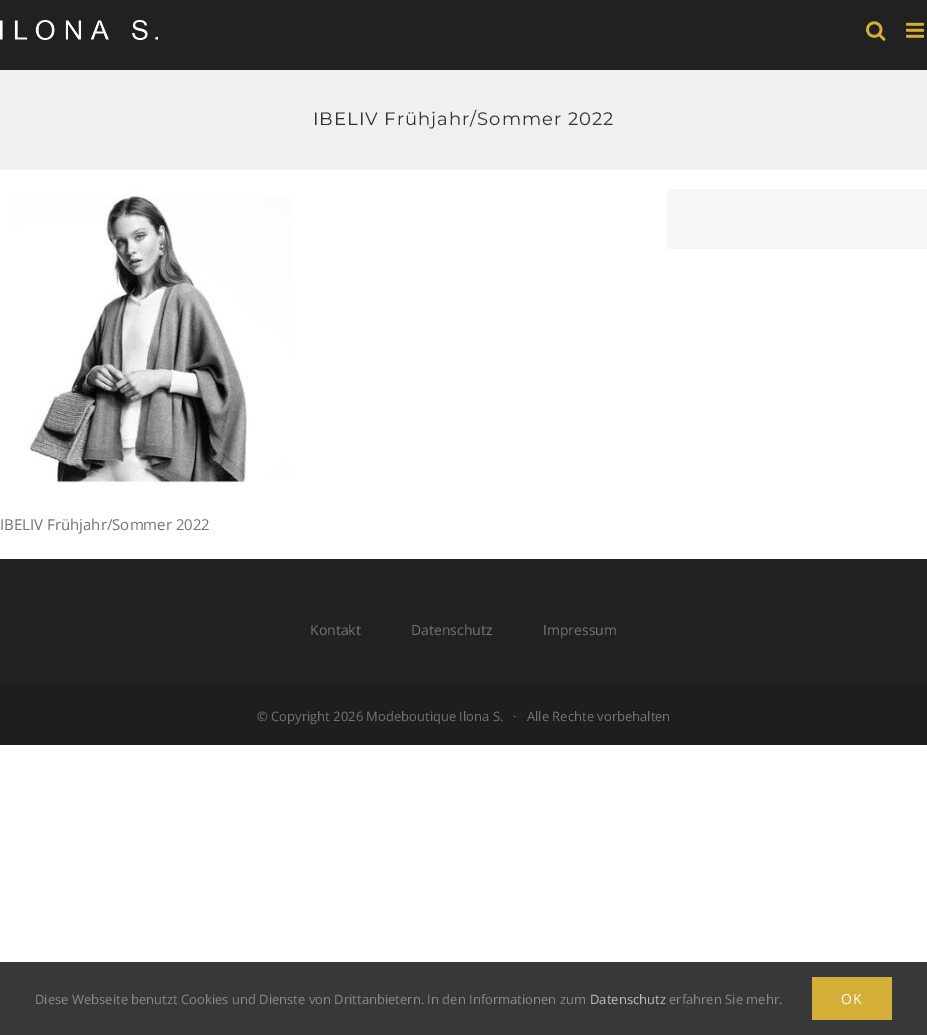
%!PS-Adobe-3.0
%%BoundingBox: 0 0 927 1035
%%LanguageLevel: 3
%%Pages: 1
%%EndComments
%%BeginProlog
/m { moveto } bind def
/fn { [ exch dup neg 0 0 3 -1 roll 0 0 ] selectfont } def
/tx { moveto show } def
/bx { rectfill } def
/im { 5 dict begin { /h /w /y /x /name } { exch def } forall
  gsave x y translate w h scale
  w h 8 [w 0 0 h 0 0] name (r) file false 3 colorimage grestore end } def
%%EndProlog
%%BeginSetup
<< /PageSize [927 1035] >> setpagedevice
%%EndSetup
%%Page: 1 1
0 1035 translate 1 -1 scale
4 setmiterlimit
1 setgray
0 0 927 1035 bx
0.129 setgray
0 0 927 70 bx
(image0.raw) 0 20 158 20 im
(image1.raw) 866 21 20 20 im
(image2.raw) 906 22 18 16 im
0.941 setgray
0 70 927 100 bx
/Montserrat-Regular 18 fn
0.2 setgray
313 125 m 1 0 (IBELIV Frühjahr/Sommer 2022) ashow
0.969 setgray
667 189 260 60 bx
(image3.raw) 0 191 299 294 im
/OpenSans-Regular 15 fn
0.455 setgray
(IBELIV Frühjahr/Sommer 2022) 0 530 tx
0.129 setgray
0 559 927 125 bx
/OpenSans-Regular 14 fn
0.455 setgray
(Kontakt) 310 635 tx
(Datenschutz) 411 635 tx
(Impressum) 543 635 tx
0.118 setgray
0 684 927 61 bx
/OpenSans-Regular 13 fn
0.455 setgray
(© Copyright 2026 Modeboutique Ilona S.   ·   Alle Rechte vorbehalten) 257 721 tx
0.212 0.22 0.224 setrgbcolor
0 962 927 73 bx
0.549 0.537 0.537 setrgbcolor
(Diese Webseite benutzt Cookies und Dienste von Drittanbietern. In den Informationen zum) 35 1004 tx
0.749 setgray
(Datenschutz) 590 1004 tx
0.549 0.537 0.537 setrgbcolor
(erfahren Sie mehr.) 669 1004 tx
0.831 0.686 0.216 setrgbcolor
812 977 80 43 bx
/OpenSans-Regular 14 fn
1 setgray
841 1004 m 1 0 (OK) ashow
showpage
%%EOF
